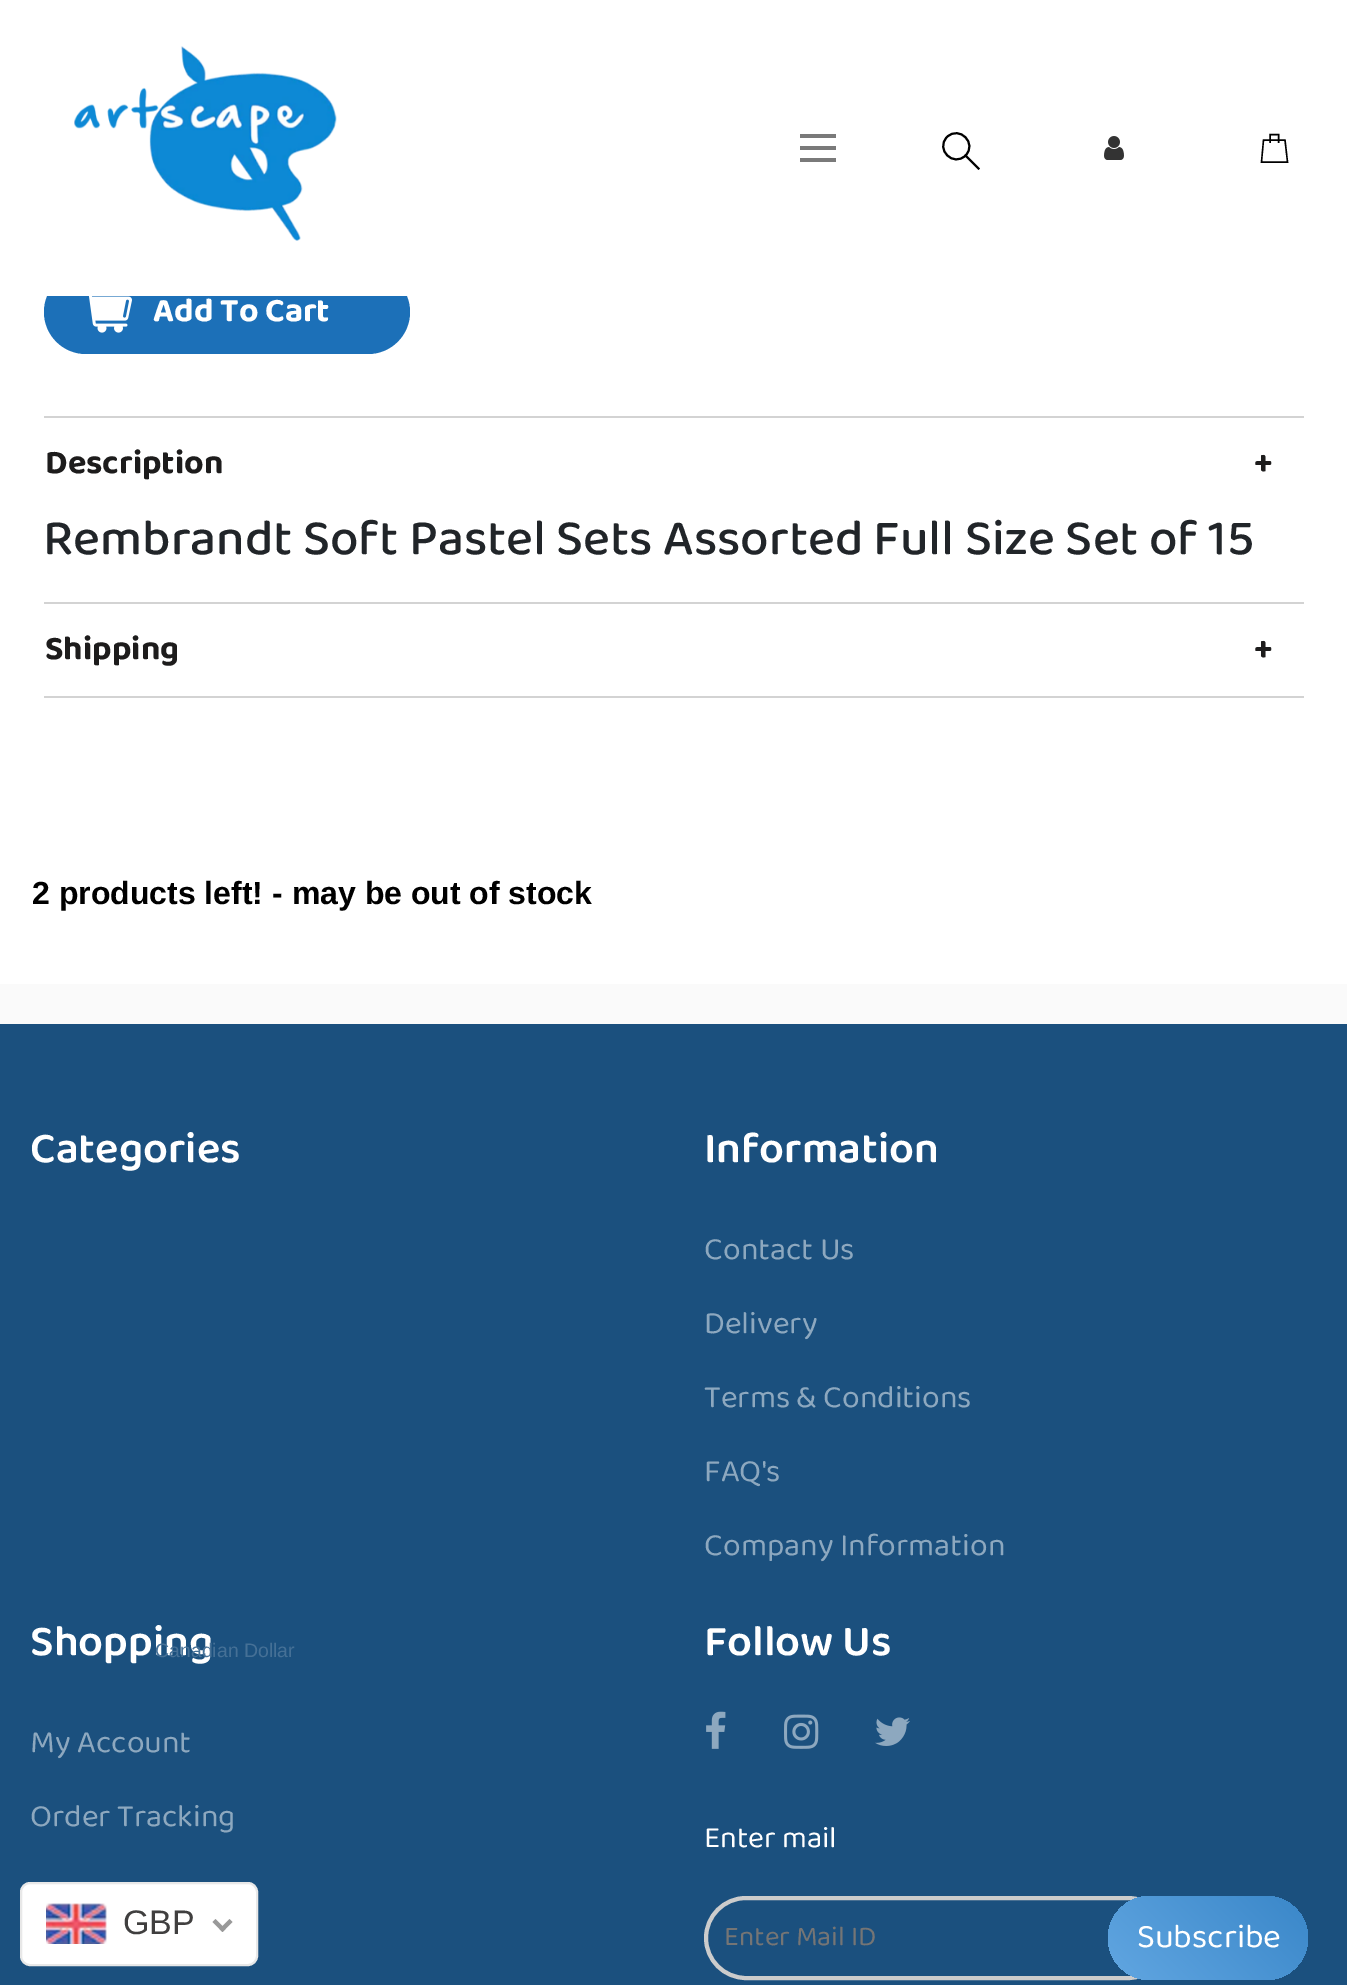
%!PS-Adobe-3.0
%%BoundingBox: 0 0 1347 1985
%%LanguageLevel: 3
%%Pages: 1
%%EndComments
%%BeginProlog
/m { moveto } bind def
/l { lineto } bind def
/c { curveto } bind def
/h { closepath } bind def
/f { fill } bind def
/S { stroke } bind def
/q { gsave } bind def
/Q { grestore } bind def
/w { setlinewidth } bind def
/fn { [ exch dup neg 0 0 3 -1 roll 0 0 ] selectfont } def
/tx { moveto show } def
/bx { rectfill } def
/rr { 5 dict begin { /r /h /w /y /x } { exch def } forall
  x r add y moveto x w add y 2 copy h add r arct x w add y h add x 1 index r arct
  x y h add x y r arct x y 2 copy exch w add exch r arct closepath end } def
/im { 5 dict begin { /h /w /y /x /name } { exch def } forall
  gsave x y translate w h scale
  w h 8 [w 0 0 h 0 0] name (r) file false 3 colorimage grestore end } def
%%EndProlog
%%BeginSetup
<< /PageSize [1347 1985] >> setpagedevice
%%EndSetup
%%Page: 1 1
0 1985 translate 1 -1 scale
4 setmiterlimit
1 setgray
0 0 1347 1985 bx
0.11 0.439 0.722 setrgbcolor
44 270 366 84 42 rr f
1 setgray
47 270 360 26 bx
(image0.raw) 74 46 263 195 im
0.478 setgray
800 134 36 4 bx
800 146 36 4 bx
800 158 36 4 bx
0 setgray
2 w
947 137 m 959.5 125 977.5 143.5 965.5 155.5 c 953.5 167.5 935 149.5 947 137 c h S
2 setlinecap
965.5 155.5 m 978.5 168.5 l S
(image1.raw) 1104 136 20 24 im
1.4 w
0 setlinecap
1263.5 140 m 1261.5 162 l 1287.5 162 l 1285 140 l h 1270 143 m 1270 134.5 l 1278.5 134.5 l 1278.5 143 l S
(image2.raw) 88 296 44 37 im
/BalooDa2-Bold 34 fn
1 setgray
(Add To Cart) 153 321 tx
0.827 setgray
44 416 1260 2 bx
0.114 0.11 0.11 setrgbcolor
(Description) 45 473 tx
(+) 1254 473 tx
/BalooDa2-Medium 51 fn
0.129 0.145 0.161 setrgbcolor
(Rembrandt Soft Pastel Sets Assorted Full Size Set of 15) 43 554 tx
0.827 setgray
44 602 1260 2 bx
44 696 1260 2 bx
/BalooDa2-Bold 34 fn
0.114 0.11 0.11 setrgbcolor
(Shipping) 45 659 tx
(+) 1254 659 tx
/LiberationSans-Bold 32 fn
0 setgray
(2 products left! - may be out of stock) 32 904 tx
0.98 setgray
0 984 1347 40 bx
0.106 0.314 0.494 setrgbcolor
0 1024 1347 961 bx
/BalooDa2-SemiBold 44 fn
1 setgray
(Categories) 30 1162 tx
(Information) 704 1162 tx
/BalooDa2-Regular 32 fn
0.553 0.659 0.749 setrgbcolor
(Contact Us) 704 1259 tx
(Delivery) 704 1333 tx
(Terms & Conditions) 704 1407 tx
(FAQ's) 704 1481 tx
(Company Information) 704 1555 tx
/BalooDa2-SemiBold 44 fn
1 setgray
(Shopping) 30 1655 tx
/BalooDa2-Regular 32 fn
0.553 0.659 0.749 setrgbcolor
(My Account) 30 1752 tx
(Order Tracking) 30 1826 tx
/BalooDa2-SemiBold 44 fn
1 setgray
(Follow Us) 704 1655 tx
(image3.raw) 706 1711 20 38 im
(image4.raw) 784 1714 35 35 im
(image5.raw) 875 1717 35 29 im
/BalooDa2-Regular 30.5 fn
(Enter mail) 704 1847 tx
0.8 setgray
4 w
706 1898 462 80 40 rr S
/BalooDa2-Regular 28 fn
0.459 setgray
(Enter Mail ID) 724 1945 tx
q 1108 1896 200 84 42 rr clip newpath
<< /ShadingType 2 /ColorSpace /DeviceRGB /Coords [1137 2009 1279 1867] /Extend [true true] /Function << /FunctionType 2 /Domain [0 1] /C0 [0.38 0.651 0.882] /C1 [0.227 0.529 0.788] /N 1 >> >> shfill Q
/BalooDa2-Regular 34 fn
1 setgray
(Subscribe) 1137 1947 tx
21 1883 236 82 9 rr q f Q
0.91 setgray
2 w
S
/LiberationSans-Regular 19.5 fn
0.271 0.439 0.588 setrgbcolor
(Canadian Dollar) 155 1657 tx
(image6.raw) 46 1903 61 41 im
/LiberationSans-Regular 34 fn
0.251 0.247 0.247 setrgbcolor
(GBP) 123 1934 tx
0.6 setgray
229.5 1919 m 232.5 1922 l 222.5 1932 l 219.5 1929 l h f
215.5 1919 m 225.5 1929 l 222.5 1932 l 212.5 1922 l h f
showpage
%%EOF
